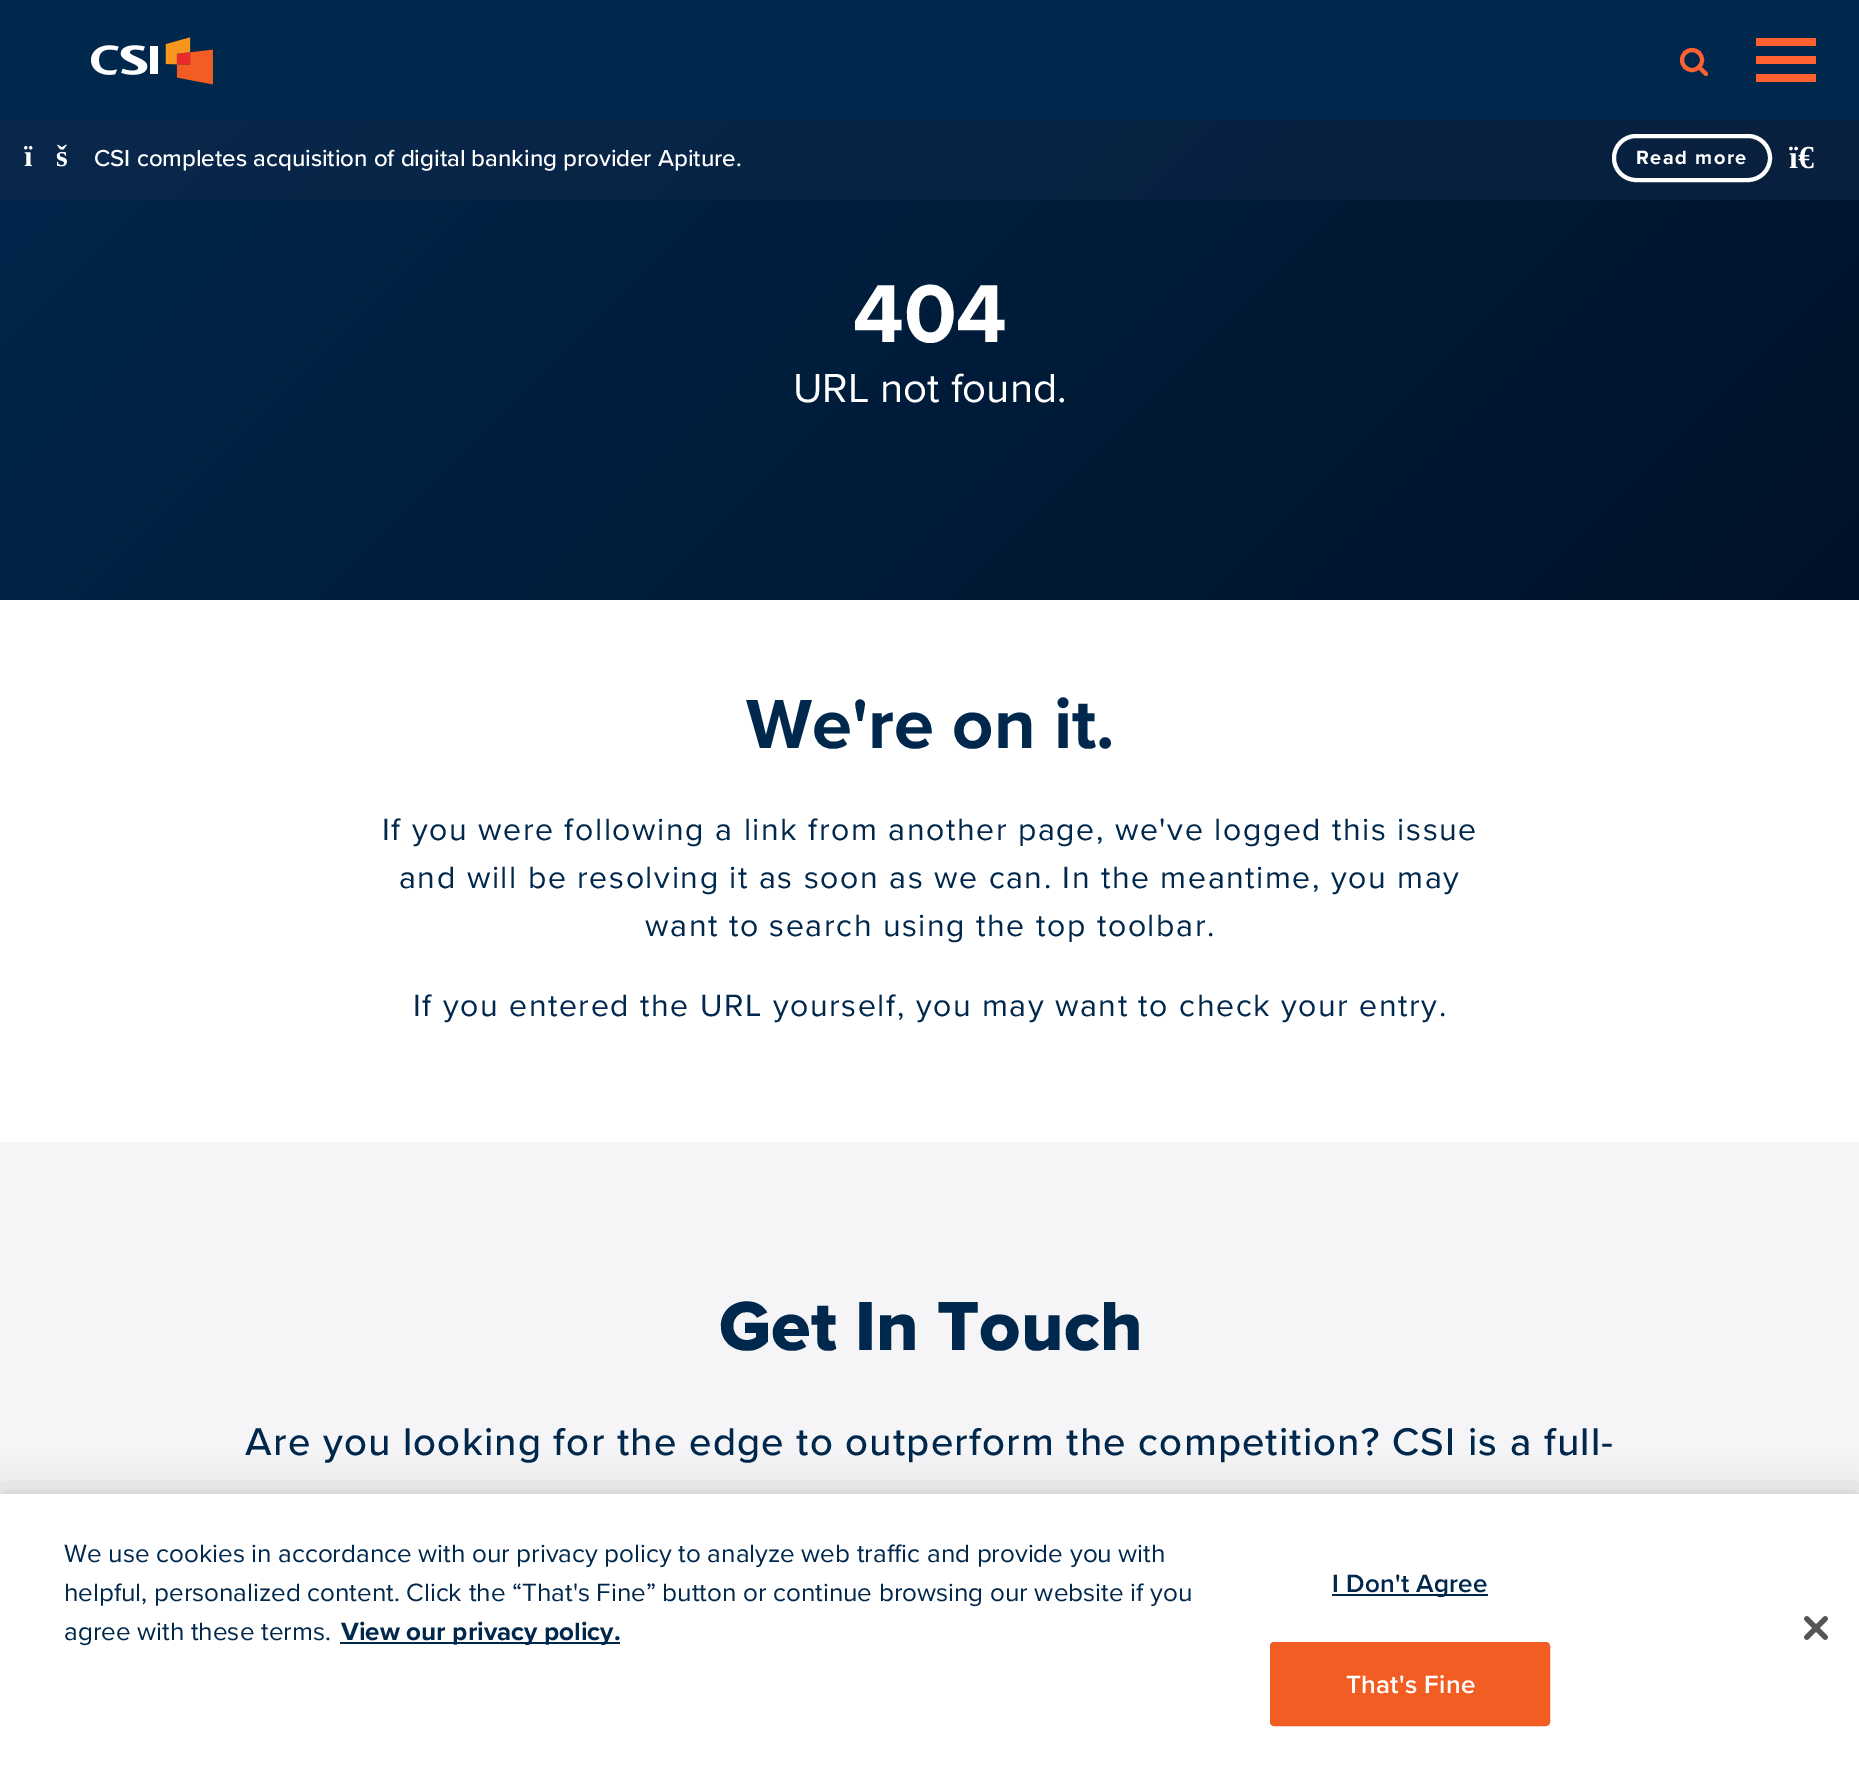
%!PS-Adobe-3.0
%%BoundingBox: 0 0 1859 1766
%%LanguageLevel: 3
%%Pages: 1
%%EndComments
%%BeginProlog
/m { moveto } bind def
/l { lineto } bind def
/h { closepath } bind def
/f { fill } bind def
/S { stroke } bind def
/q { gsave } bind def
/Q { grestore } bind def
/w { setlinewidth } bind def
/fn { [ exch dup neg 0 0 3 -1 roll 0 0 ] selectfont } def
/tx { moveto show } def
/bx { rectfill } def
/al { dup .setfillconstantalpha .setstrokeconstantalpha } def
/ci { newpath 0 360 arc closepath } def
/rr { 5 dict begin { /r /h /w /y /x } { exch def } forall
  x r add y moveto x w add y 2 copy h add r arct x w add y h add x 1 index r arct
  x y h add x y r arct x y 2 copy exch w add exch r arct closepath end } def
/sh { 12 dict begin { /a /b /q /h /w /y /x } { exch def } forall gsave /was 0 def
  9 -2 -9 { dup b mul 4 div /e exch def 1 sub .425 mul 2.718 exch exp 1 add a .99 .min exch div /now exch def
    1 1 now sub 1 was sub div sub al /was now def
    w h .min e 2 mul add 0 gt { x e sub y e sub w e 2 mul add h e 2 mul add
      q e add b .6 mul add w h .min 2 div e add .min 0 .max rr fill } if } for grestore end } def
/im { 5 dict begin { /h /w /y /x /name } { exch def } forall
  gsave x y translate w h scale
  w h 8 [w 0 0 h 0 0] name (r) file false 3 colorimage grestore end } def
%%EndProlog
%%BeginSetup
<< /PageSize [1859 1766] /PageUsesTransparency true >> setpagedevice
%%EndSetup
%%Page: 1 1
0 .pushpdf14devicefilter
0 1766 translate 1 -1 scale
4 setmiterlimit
1 setgray
0 0 1859 1766 bx
0 0.153 0.298 setrgbcolor
0 0 1859 120 bx
(image0.raw) 90 37 123 48 im
1 0.38 0.192 setrgbcolor
4 w
1692 60 10 ci S
1 setlinecap
1 setlinejoin
1706 74 m 1699 67 l S
1756 56 60 8 bx
1756 38 60 8 bx
1756 74 60 8 bx
q 0 120 m 1859 120 l 1859 200 l 0 200 l h clip newpath
<< /ShadingType 2 /ColorSpace /DeviceRGB /Coords [345 -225 1515 945] /Extend [true true] /Function << /FunctionType 2 /Domain [0 1] /C0 [0.031 0.157 0.298] /C1 [0.031 0.114 0.227] /N 1 >> >> shfill Q
/LiberationSerif-Bold 30 fn
1 setgray
(ï) 24 166 tx
(š) 56 166 tx
/ProximaNova-Medium 24 fn
(CSI completes acquisition of digital banking provider Apiture.) 94 166 tx
0 setlinecap
0 setlinejoin
1614 136 156 44 22 rr S
/ProximaNova-Bold 20 fn
1636 164 m 1.5 0 (Read more) ashow
/LiberationSerif-Bold 32 fn
(ï€) 1789 168 tx
q 0 200 m 1859 200 l 1859 600 l 0 600 l h clip newpath
<< /ShadingType 2 /ColorSpace /DeviceRGB /Coords [345 -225 1515 945] /Extend [true true] /Function << /FunctionType 2 /Domain [0 1] /C0 [0 0.153 0.298] /C1 [0 0.071 0.161] /N 1 >> >> shfill Q
/ProximaNova-Bold 85 fn
(404) 853 342 tx
/ProximaNova-Regular 42 fn
(URL not found.) 793 402 tx
/ProximaNova-Bold 72 fn
0 0.153 0.298 setrgbcolor
(We're on it.) 746 748 tx
/ProximaNova-Regular 32 fn
382 840 m 1.6 0 (If you were following a link from another page, we've logged this issue) ashow
399 888 m 1.6 0 (and will be resolving it as soon as we can. In the meantime, you may) ashow
645 936 m 1.6 0 (want to search using the top toolbar.) ashow
413 1016 m 1.6 0 (If you entered the URL yourself, you may want to check your entry.) ashow
0.961 0.961 0.969 setrgbcolor
0 1142 1859 352 bx
/ProximaNova-ExtraBold 72 fn
0 0.153 0.298 setrgbcolor
(Get In Touch) 719 1350 tx
/ProximaNova-Medium 40 fn
245 1455 m 1.2 0 (Are you looking for the edge to outperform the competition? CSI is a full-) ashow
0 setgray
0 1494 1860 272 0 18 0.2 sh
1 setgray
0 1494 1859 272 bx
/ProximaNova-Regular 26 fn
0 0.153 0.298 setrgbcolor
(We use cookies in accordance with our privacy policy to analyze web traffic and provide you with) 64 1562 tx
(helpful, personalized content. Click the “That's Fine” button or continue browsing our website if you) 64 1601 tx
(agree with these terms.) 64 1640 tx
340 1642 280 2 bx
/ProximaNova-Bold 26 fn
(View our privacy policy.) 341 1640 tx
1332 1594 156 2 bx
/ProximaNova-SemiBold 26 fn
1332 1592 m 0.25 0 (I Don't Agree) ashow
0.945 0.365 0.133 setrgbcolor
1271 1643 278 82 3 rr q f Q
2 w
S
1 setgray
1346 1693 m 0.25 0 (That's Fine) ashow
(image1.raw) 1804 1616 24 24 im
.poppdf14devicefilter showpage
%%EOF
